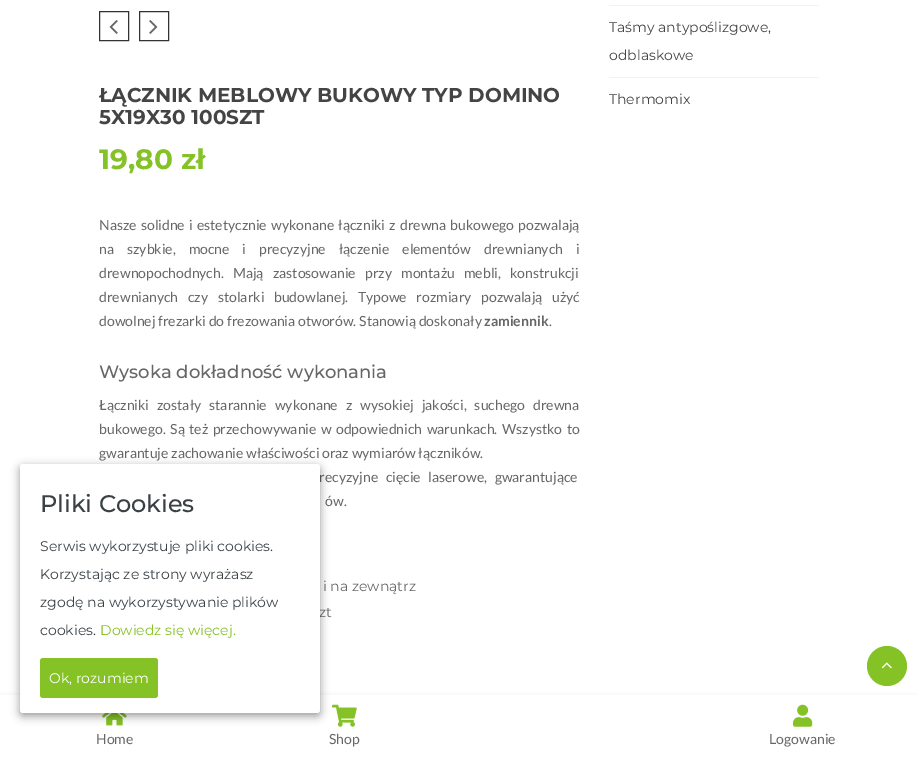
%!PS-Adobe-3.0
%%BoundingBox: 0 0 917 758
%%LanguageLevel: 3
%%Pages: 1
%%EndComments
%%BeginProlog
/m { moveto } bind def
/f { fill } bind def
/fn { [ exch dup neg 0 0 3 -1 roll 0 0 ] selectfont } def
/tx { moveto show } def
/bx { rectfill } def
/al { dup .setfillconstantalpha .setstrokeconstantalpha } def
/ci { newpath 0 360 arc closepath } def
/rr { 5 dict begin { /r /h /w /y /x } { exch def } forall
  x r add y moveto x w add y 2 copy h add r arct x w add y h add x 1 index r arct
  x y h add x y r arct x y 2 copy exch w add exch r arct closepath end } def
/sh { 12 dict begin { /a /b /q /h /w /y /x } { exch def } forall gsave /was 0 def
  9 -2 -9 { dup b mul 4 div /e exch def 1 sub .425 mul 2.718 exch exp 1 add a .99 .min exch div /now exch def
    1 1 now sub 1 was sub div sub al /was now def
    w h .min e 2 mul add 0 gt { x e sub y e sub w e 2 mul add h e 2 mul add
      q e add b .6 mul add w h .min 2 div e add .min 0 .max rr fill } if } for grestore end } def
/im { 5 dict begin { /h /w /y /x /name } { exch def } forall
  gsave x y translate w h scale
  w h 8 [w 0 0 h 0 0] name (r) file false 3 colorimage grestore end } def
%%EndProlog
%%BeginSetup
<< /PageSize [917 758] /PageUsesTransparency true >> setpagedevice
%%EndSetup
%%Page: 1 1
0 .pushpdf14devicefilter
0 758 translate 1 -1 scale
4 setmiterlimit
1 setgray
0 0 917 758 bx
0.949 setgray
609 5 210 1 bx
/Montserrat-Regular 14 fn
0.267 setgray
(Taśmy antypoślizgowe,) 609 32 tx
(odblaskowe) 609 60 tx
0.949 setgray
609 77 210 1 bx
0.267 setgray
(Thermomix) 609 104 tx
0.2 setgray
99.5 11.5 29 29 rectstroke
(image0.raw) 109 20 9 14 im
139.5 11.5 29 29 rectstroke
(image1.raw) 149 20 9 14 im
/Montserrat-Bold 20 fn
0.267 setgray
(ŁĄCZNIK MEBLOWY BUKOWY TYP DOMINO) 99 102 tx
(5X19X30 100SZT) 99 124 tx
/Montserrat-Bold 28 fn
0.518 0.761 0.145 setrgbcolor
(19,80 zł) 99 169 tx
/Lato-Regular 14 fn
0.4 setgray
99 230 m 1.5 0 32 (Nasze solidne i estetycznie wykonane łączniki z drewna bukowego pozwalają) widthshow
99 254 m 10.25 0 32 (na szybkie, mocne i precyzyjne łączenie elementów drewnianych i) widthshow
99 278 m 6.5 0 32 (drewnopochodnych. Mają zastosowanie przy montażu mebli, konstrukcji) widthshow
99 302 m 7 0 32 (drewnianych czy stolarki budowlanej. Typowe rozmiary pozwalają użyć) widthshow
(dowolnej frezarki do frezowania otworów. Stanowią doskonały) 99 326 tx
/Lato-Bold 14 fn
(zamiennik) 484 326 tx
/Lato-Regular 14 fn
(.) 549 326 tx
/Montserrat-Medium 18 fn
(Wysoka dokładność wykonania) 99 378 tx
/Lato-Regular 14 fn
99 410 m 5.25 0 32 (Łączniki zostały starannie wykonane z wysokiej jakości, suchego drewna) widthshow
99 434 m 1.75 0 32 (bukowego. Są też przechowywanie w odpowiednich warunkach. Wszystko to) widthshow
(gwarantuje zachowanie właściwości oraz wymiarów łączników.) 99 458 tx
319 482 m 5 0 32 (recyzyjne cięcie laserowe, gwarantujące) widthshow
(ów.) 325 506 tx
/Montserrat-Regular 14 fn
(i na zewnątrz) 323 591 tx
(zt) 319 617 tx
0.945 setgray
0 695 917 63 0 2.5 1 sh
1 setgray
0 695 917 63 bx
(image3.raw) 102 713 25 13 im
(image4.raw) 332 704 25 23 im
0 setgray
20 467 300 249 3 4.5 0.4 sh
1 setgray
20 464 300 249 3 rr f
/Montserrat-Medium 24 fn
0.227 0.255 0.271 setrgbcolor
(Pliki Cookies) 40 512 tx
/Montserrat-Regular 14 fn
(Serwis wykorzystuje pliki cookies.) 40 551 tx
(Korzystając ze strony wyrażasz) 40 579 tx
(zgodę na wykorzystywanie plików) 40 607 tx
(cookies.) 40 635 tx
0.518 0.761 0.145 setrgbcolor
(Dowiedz się więcej.) 100 635 tx
40 658 118 40 3 rr f
1 setgray
(Ok, rozumiem) 49 683 tx
0.518 0.761 0.145 setrgbcolor
887 666 20 ci f
(image2.raw) 881 662 11 7 im
/Lato-Regular 14 fn
0.4 setgray
(Home) 96 744 tx
(Shop) 329 744 tx
(image5.raw) 793 704 20 23 im
(Logowanie) 769 744 tx
.poppdf14devicefilter showpage
%%EOF
